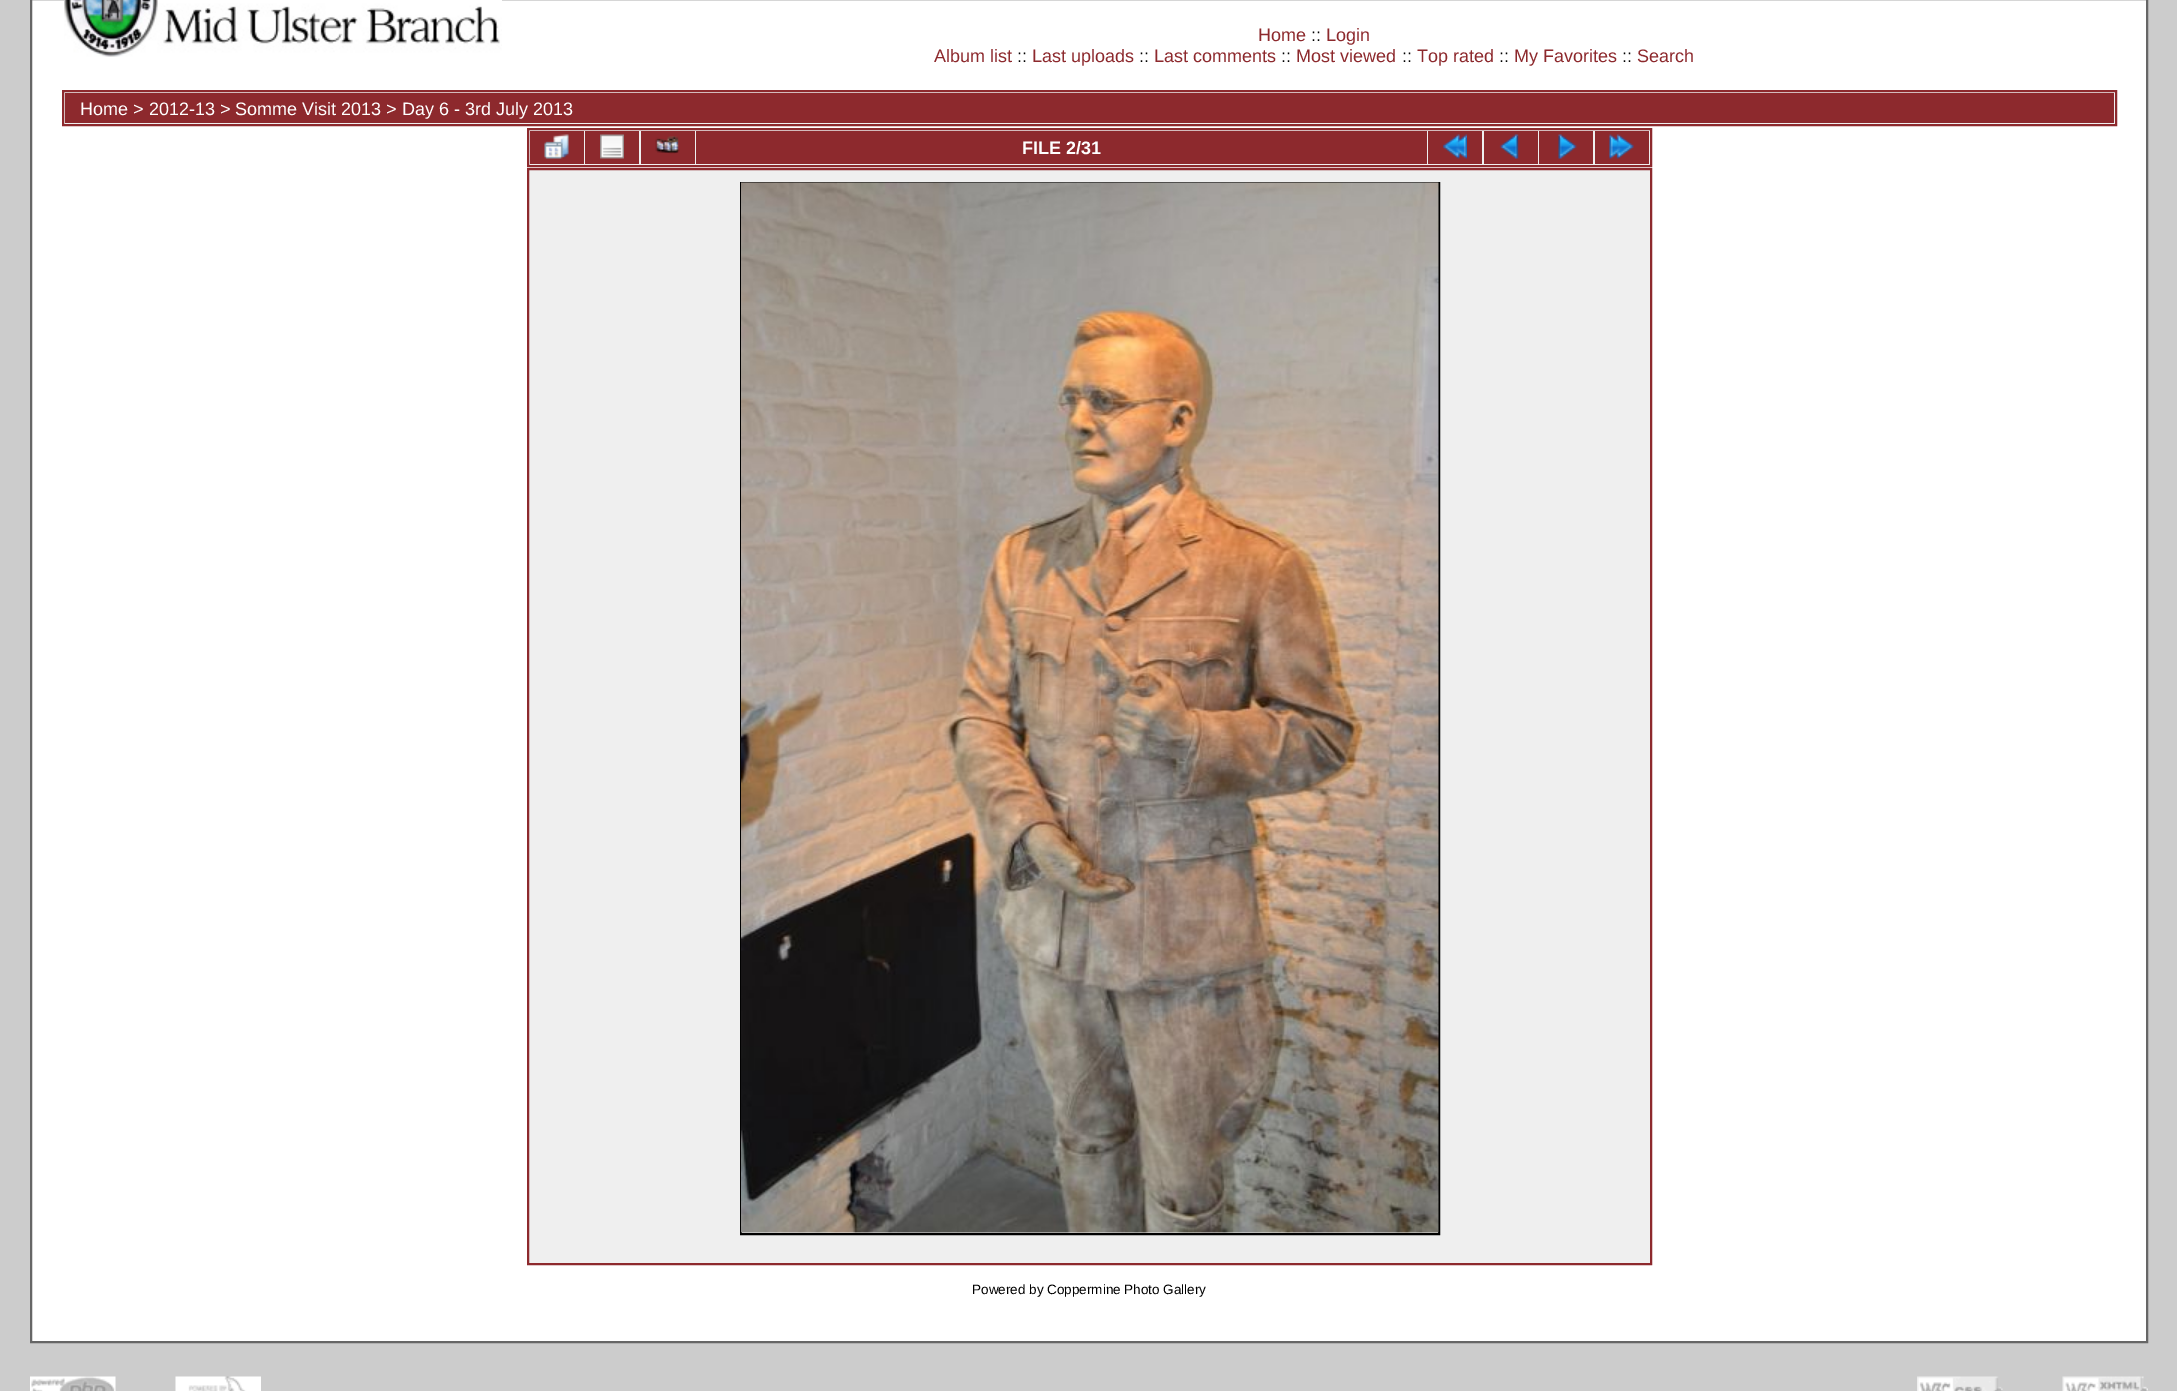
%!PS-Adobe-3.0
%%BoundingBox: 0 0 2177 1391
%%LanguageLevel: 3
%%Pages: 1
%%EndComments
%%BeginProlog
/m { moveto } bind def
/l { lineto } bind def
/h { closepath } bind def
/f { fill } bind def
/S { stroke } bind def
/q { gsave } bind def
/Q { grestore } bind def
/w { setlinewidth } bind def
/fn { [ exch dup neg 0 0 3 -1 roll 0 0 ] selectfont } def
/tx { moveto show } def
/bx { rectfill } def
/im { 5 dict begin { /h /w /y /x /name } { exch def } forall
  gsave x y translate w h scale
  w h 8 [w 0 0 h 0 0] name (r) file false 3 colorimage grestore end } def
%%EndProlog
%%BeginSetup
<< /PageSize [2177 1391] >> setpagedevice
%%EndSetup
%%Page: 1 1
0 1391 translate 1 -1 scale
4 setmiterlimit
0.8 setgray
0 0 2177 1391 bx
1 setgray
31 -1 m 2147 -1 l 2147 1342 l 31 1342 l h q f Q
0.4 setgray
2 w
S
(image0.raw) 64 0 438 57 im
/LiberationSans-Regular 18 fn
0.553 0.161 0.176 setrgbcolor
(Home) 1258 41 tx
0 setgray
(::) 1311 41 tx
0.553 0.161 0.176 setrgbcolor
(Login) 1326 41 tx
(Album list) 934 62 tx
0 setgray
(::) 1017 62 tx
0.553 0.161 0.176 setrgbcolor
(Last uploads) 1032 62 tx
0 setgray
(::) 1139 62 tx
0.553 0.161 0.176 setrgbcolor
(Last comments) 1154 62 tx
0 setgray
(::) 1281 62 tx
0.553 0.161 0.176 setrgbcolor
(Most viewed) 1296 62 tx
0 setgray
(::) 1402 62 tx
0.553 0.161 0.176 setrgbcolor
(Top rated) 1417 62 tx
0 setgray
(::) 1499 62 tx
0.553 0.161 0.176 setrgbcolor
(My Favorites) 1514 62 tx
0 setgray
(::) 1622 62 tx
0.553 0.161 0.176 setrgbcolor
(Search) 1637 62 tx
0.937 setgray
63 91 m 2116 91 l 2116 125 l 63 125 l h q f Q
0.553 0.161 0.176 setrgbcolor
S
65 93 2049 30 bx
1 setgray
(Home > 2012-13 > Somme Visit 2013 > Day 6 - 3rd July 2013) 80 115 tx
0.937 setgray
528 129 m 1651 129 l 1651 166 l 528 166 l h q f Q
0.553 0.161 0.176 setrgbcolor
S
530 131 54 33 bx
(image1.raw) 544 134 25 25 im
585 131 54 33 bx
(image2.raw) 600 134 24 25 im
641 131 54 33 bx
(image3.raw) 655 136 25 18 im
696 131 731 33 bx
/LiberationSans-Bold 18 fn
1 setgray
(FILE 2/31) 1022 154 tx
0.553 0.161 0.176 setrgbcolor
1428 131 54 33 bx
(image4.raw) 1443 134 24 25 im
1484 131 54 33 bx
(image5.raw) 1499 134 20 25 im
1539 131 54 33 bx
(image6.raw) 1558 134 19 25 im
1595 131 54 33 bx
(image7.raw) 1609 134 25 25 im
0.937 setgray
528 169 m 1651 169 l 1651 1264 l 528 1264 l h q f Q
0.553 0.161 0.176 setrgbcolor
S
0 setgray
741 183 698 1051 rectstroke
(image8.raw) 741 182 698 1051 im
/LiberationSans-Regular 13.5 fn
(Powered by Coppermine Photo Gallery) 972 1294 tx
(image9.raw) 30 1376 86 15 im
(image10.raw) 175 1376 86 15 im
(image11.raw) 1917 1376 86 15 im
(image12.raw) 2062 1376 86 15 im
showpage
%%EOF
